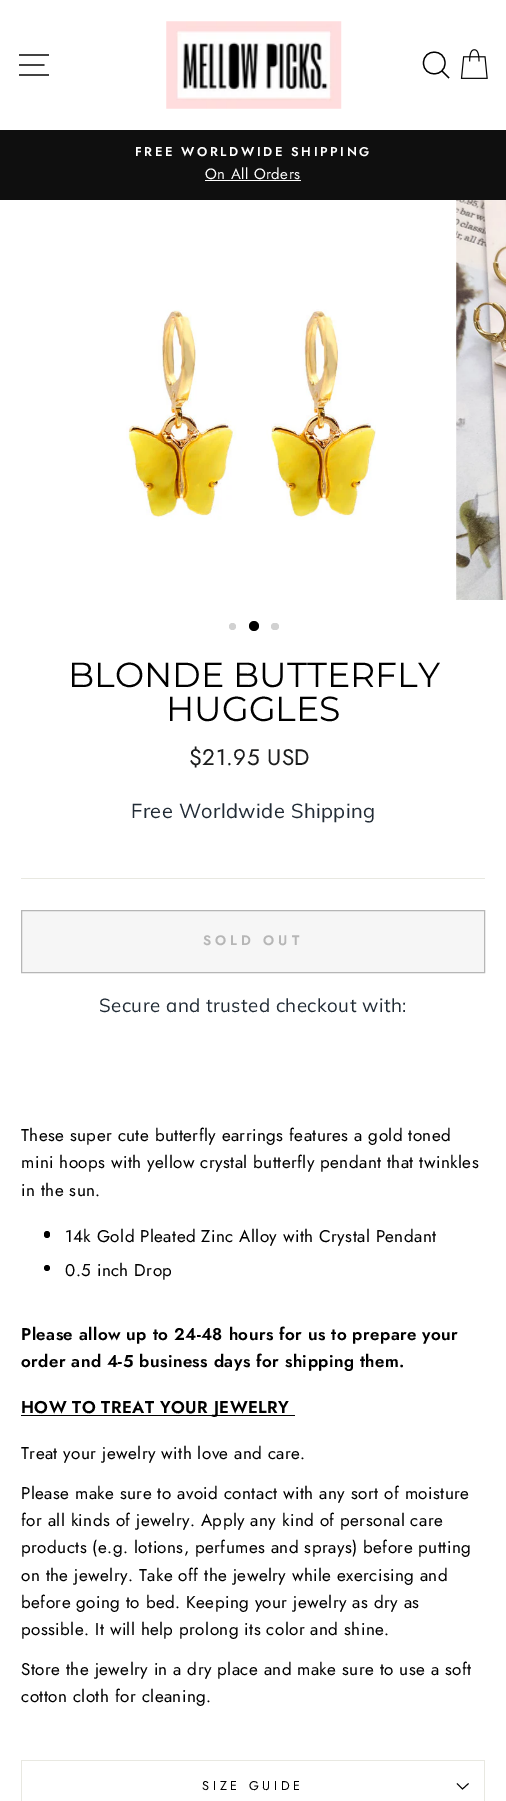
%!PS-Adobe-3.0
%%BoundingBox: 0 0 506 1801
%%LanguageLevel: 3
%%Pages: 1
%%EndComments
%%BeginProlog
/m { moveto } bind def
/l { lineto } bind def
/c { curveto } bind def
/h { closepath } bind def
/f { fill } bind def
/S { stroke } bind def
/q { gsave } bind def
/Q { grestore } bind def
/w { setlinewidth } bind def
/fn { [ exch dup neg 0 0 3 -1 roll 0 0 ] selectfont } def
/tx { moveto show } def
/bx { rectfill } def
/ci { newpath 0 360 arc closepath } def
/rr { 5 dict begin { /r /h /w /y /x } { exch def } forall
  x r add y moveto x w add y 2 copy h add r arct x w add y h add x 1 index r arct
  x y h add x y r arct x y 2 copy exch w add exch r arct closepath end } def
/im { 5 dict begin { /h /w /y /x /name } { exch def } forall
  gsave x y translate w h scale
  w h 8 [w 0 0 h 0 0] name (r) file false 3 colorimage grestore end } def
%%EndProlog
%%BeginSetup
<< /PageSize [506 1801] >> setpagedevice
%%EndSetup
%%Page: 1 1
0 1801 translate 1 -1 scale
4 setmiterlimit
1 setgray
0 0 506 1801 bx
0 setgray
1.2 w
19 55 m 49 55 l 19 65 m 44.5 65 l 19 75 m 49 75 l S
(image0.raw) 166 21 176 88 im
445 63 m 445 77.5 423.5 77.5 423.5 63 c 423.5 48.5 445 48.5 445 63 c h 449 78 m 442 71 l S
(image1.raw) 460 49 28 30 im
0.059 setgray
0 130 506 70 bx
/Jost-SemiBold 12.75 fn
1 setgray
135 156 m 2.55 0 (FREE WORLDWIDE SHIPPING) ashow
/Jost-Regular 15 fn
205 179 m 0.43 0 (On All Orders) ashow
205 180 96 1 bx
(image2.raw) 126 309 250 211 im
(image3.raw) 456 200 50 400 im
0.82 setgray
232.5 626.5 3.5 ci f
0 setgray
254 626 5 ci f
0.82 setgray
271 623 8 7 3.5 rr f
/Montserrat-Regular 34.75 fn
0 setgray
(BLONDE BUTTERFLY) 68 687 tx
(HUGGLES) 166 721 tx
/Jost-Regular 22.5 fn
0.11 0.114 0.114 setrgbcolor
189 765 m 0.43 0 ($21.95 USD) ashow
/Muli-Regular 20 fn
0.129 0.169 0.208 setrgbcolor
131 818 m 0.43 0 (Free Worldwide Shipping) ashow
0.91 0.91 0.882 setrgbcolor
21 878 464 1 bx
0.965 setgray
21.5 910.5 m 484.5 910.5 l 484.5 972.5 l 21.5 972.5 l h q f Q
0.714 setgray
1 w
S
/Jost-SemiBold 13.75 fn
203 945 m 4 0 (SOLD OUT) ashow
/Muli-Regular 18.75 fn
0.129 0.169 0.208 setrgbcolor
99 1012 m 0.43 0 (Secure and trusted checkout with:) ashow
/Jost-Regular 17 fn
0 setgray
21 1141 m 0.43 0 (These super cute butterfly earrings features a gold toned) ashow
21 1168 m 0.43 0 (mini hoops with yellow crystal butterfly pendant that twinkles) ashow
21 1196 m 0.43 0 (in the sun.) ashow
44 1231 6 7 3 rr f
65 1242 m 0.43 0 (14k Gold Pleated Zinc Alloy with Crystal Pendant) ashow
47 1268 3 ci f
65 1276 m 0.43 0 (0.5 inch Drop) ashow
/Jost-SemiBold 17 fn
21 1340 m 0.43 0 (Please allow up to 24-48 hours for us to prepare your) ashow
21 1367 m 0.43 0 (order and 4-5 business days for shipping them.) ashow
21 1415 274 1 bx
21 1413 m 0.43 0 (HOW TO TREAT YOUR JEWELRY) ashow
/Jost-Regular 17 fn
21 1459 m 0.43 0 (Treat your jewelry with love and care.) ashow
21 1499 m 0.43 0 (Please make sure to avoid contact with any sort of moisture) ashow
21 1526 m 0.43 0 (for all kinds of jewelry. Apply any kind of personal care) ashow
21 1553 m 0.43 0 (products \(e.g. lotions, perfumes and sprays\) before putting) ashow
21 1581 m 0.43 0 (on the jewelry. Take off the jewelry while exercising and) ashow
21 1608 m 0.43 0 (before going to bed. Keeping your jewelry as dry as) ashow
21 1635 m 0.43 0 (possible. It will help prolong its color and shine.) ashow
21 1675 m 0.43 0 (Store the jewelry in a dry place and make sure to use a soft) ashow
21 1702 m 0.43 0 (cotton cloth for cleaning.) ashow
0.91 0.91 0.882 setrgbcolor
21 1760 464 1 bx
484 1760 1 41 bx
21 1760 1 41 bx
/Jost-Regular 12.75 fn
0 setgray
202 1790 m 3.75 0 (SIZE GUIDE) ashow
0.9 w
457 1783.5 m 462.5 1789 l 468.5 1783.5 l S
showpage
%%EOF
